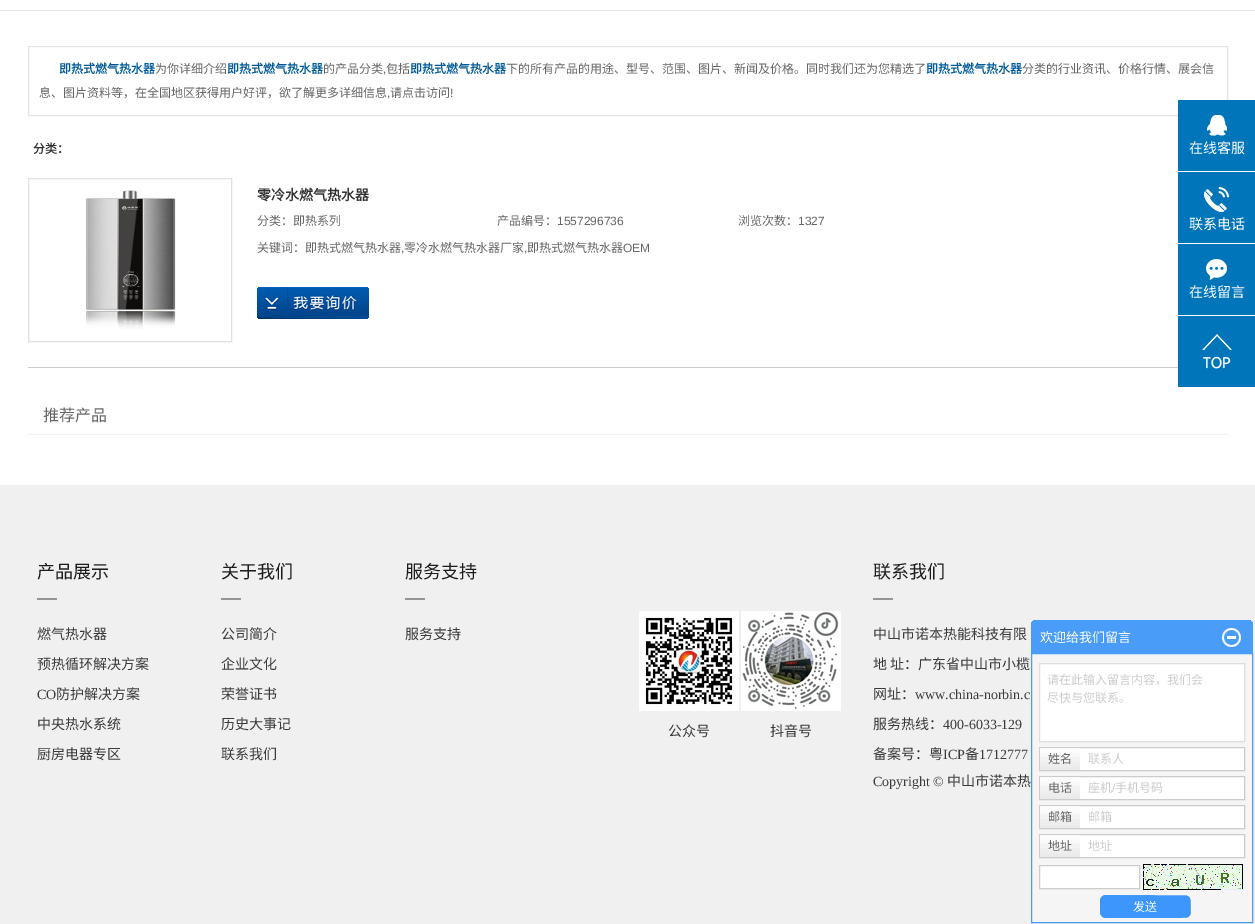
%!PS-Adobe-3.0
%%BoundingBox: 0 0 1255 924
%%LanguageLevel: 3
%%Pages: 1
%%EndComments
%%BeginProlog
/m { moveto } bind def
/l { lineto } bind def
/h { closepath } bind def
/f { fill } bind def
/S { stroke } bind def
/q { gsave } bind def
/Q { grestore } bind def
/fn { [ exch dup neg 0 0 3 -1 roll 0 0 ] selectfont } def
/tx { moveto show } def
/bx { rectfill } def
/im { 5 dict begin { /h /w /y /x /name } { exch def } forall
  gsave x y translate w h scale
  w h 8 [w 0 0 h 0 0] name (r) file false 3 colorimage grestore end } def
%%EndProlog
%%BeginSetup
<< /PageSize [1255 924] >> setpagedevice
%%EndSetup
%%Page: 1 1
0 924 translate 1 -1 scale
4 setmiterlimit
1 setgray
0 0 1255 924 bx
0.89 setgray
0 10 1255 1 bx
0.898 setgray
28.5 46.5 1199 69 rectstroke
/NotoSansCJKSC-Bold 12 fn
0 0.353 0.596 setrgbcolor
(即热式燃气热水器) 59 73 tx
/NotoSansCJKSC-Regular 12 fn
0.4 setgray
(为你详细介绍) 155 73 tx
/NotoSansCJKSC-Bold 12 fn
0 0.353 0.596 setrgbcolor
(即热式燃气热水器) 227 73 tx
/NotoSansCJKSC-Regular 12 fn
0.4 setgray
(的产品分类) 323 73 tx
/LiberationSans-Regular 12 fn
(,) 383 73 tx
/NotoSansCJKSC-Regular 12 fn
(包括) 386 73 tx
/NotoSansCJKSC-Bold 12 fn
0 0.353 0.596 setrgbcolor
(即热式燃气热水器) 410 73 tx
/NotoSansCJKSC-Regular 12 fn
0.4 setgray
(下的所有产品的用途、型号、范围、图片、新闻及价格。同时我们还为您精选了) 506 73 tx
/NotoSansCJKSC-Bold 12 fn
0 0.353 0.596 setrgbcolor
(即热式燃气热水器) 926 73 tx
/NotoSansCJKSC-Regular 12 fn
0.4 setgray
(分类的行业资讯、价格行情、展会信) 1022 73 tx
(息、图片资料等，在全国地区获得用户好评，欲了解更多详细信息) 39 97 tx
/LiberationSans-Regular 12 fn
(,) 387 97 tx
/NotoSansCJKSC-Regular 12 fn
(请点击访问) 390 97 tx
/LiberationSans-Regular 12 fn
(!) 450 97 tx
/NotoSansCJKSC-Bold 12 fn
0.2 setgray
(分类：) 33 153 tx
0.8 setgray
28 367 1150 1 bx
0.878 0.882 0.863 setrgbcolor
28.5 178.5 203 163 rectstroke
(image0.raw) 86 190 90 139 im
/NotoSansCJKSC-Bold 14 fn
0.2 setgray
(零冷水燃气热水器) 257 200 tx
/NotoSansCJKSC-Regular 12 fn
0.4 setgray
(分类：即热系列) 257 225 tx
(产品编号：) 497 225 tx
/LiberationSans-Regular 12 fn
(1557296736) 557 225 tx
/NotoSansCJKSC-Regular 12 fn
(浏览次数：) 738 225 tx
/LiberationSans-Regular 12 fn
(1327) 798 225 tx
/NotoSansCJKSC-Regular 12 fn
(关键词：即热式燃气热水器) 257 252 tx
/LiberationSans-Regular 12 fn
(,) 401 252 tx
/NotoSansCJKSC-Regular 12 fn
(零冷水燃气热水器厂家) 404 252 tx
/LiberationSans-Regular 12 fn
(,) 524 252 tx
/NotoSansCJKSC-Regular 12 fn
(即热式燃气热水器) 527 252 tx
/LiberationSans-Regular 12 fn
(OEM) 623 252 tx
(image1.raw) 257 287 112 32 im
0.945 setgray
28 434 1200 1 bx
/NotoSansCJKSC-Regular 16 fn
0.4 setgray
(推荐产品) 43 421 tx
0 0.459 0.725 setrgbcolor
1178 100 77 71 bx
(image2.raw) 1207 115 20 21 im
/NotoSansCJKSC-Regular 14 fn
1 setgray
(在线客服) 1189 153 tx
0 0.459 0.725 setrgbcolor
1178 172 77 71 bx
(image3.raw) 1204 187 25 25 im
1 setgray
(联系电话) 1189 229 tx
0 0.459 0.725 setrgbcolor
1178 244 77 71 bx
(image4.raw) 1206 259 21 21 im
1 setgray
(在线留言) 1189 297 tx
0 0.459 0.725 setrgbcolor
1178 316 77 71 bx
(image5.raw) 1202 334 30 35 im
0.941 setgray
0 485 1255 439 bx
0.584 setgray
37 598 20 2 bx
/NotoSansCJKSC-Regular 18 fn
0.11 setgray
(产品展示) 37 578 tx
/NotoSansCJKSC-Regular 14 fn
0.227 setgray
(燃气热水器) 37 639 tx
(预热循环解决方案) 37 669 tx
/LiberationSerif-Regular 14 fn
(CO) 37 699 tx
/NotoSansCJKSC-Regular 14 fn
(防护解决方案) 56 699 tx
(中央热水系统) 37 729 tx
(厨房电器专区) 37 759 tx
0.584 setgray
221 598 20 2 bx
/NotoSansCJKSC-Regular 18 fn
0.11 setgray
(关于我们) 221 578 tx
/NotoSansCJKSC-Regular 14 fn
0.227 setgray
(公司简介) 221 639 tx
(企业文化) 221 669 tx
(荣誉证书) 221 699 tx
(历史大事记) 221 729 tx
(联系我们) 221 759 tx
0.584 setgray
405 598 20 2 bx
/NotoSansCJKSC-Regular 18 fn
0.11 setgray
(服务支持) 405 578 tx
/NotoSansCJKSC-Regular 14 fn
0.227 setgray
(服务支持) 405 639 tx
(image6.raw) 639 611 100 100 im
(公众号) 668 736 tx
(image7.raw) 741 611 100 100 im
(抖音号) 770 736 tx
0.584 setgray
873 598 20 2 bx
/NotoSansCJKSC-Regular 18 fn
0.11 setgray
(联系我们) 873 578 tx
/NotoSansCJKSC-Regular 14 fn
0.227 setgray
(中山市诺本热能科技有限) 873 639 tx
(地 址：广东省中山市小榄) 873 669 tx
(网址：) 873 699 tx
/LiberationSerif-Regular 14 fn
(www.china-norbin.c) 915 699 tx
/NotoSansCJKSC-Regular 14 fn
(服务热线：) 873 729 tx
/LiberationSerif-Regular 14 fn
(400-6033-129) 943 729 tx
/NotoSansCJKSC-Regular 14 fn
(备案号：粤) 873 759 tx
/LiberationSerif-Regular 14 fn
(ICP) 943 759 tx
/NotoSansCJKSC-Regular 14 fn
(备) 965 759 tx
/LiberationSerif-Regular 14 fn
(1712777) 979 759 tx
(Copyright ©) 873 786 tx
/NotoSansCJKSC-Regular 14 fn
(中山市诺本热) 947 786 tx
0.29 0.612 0.976 setrgbcolor
1033 620 218 1 bx
1032 621 220 1 bx
1031 622 222 31 bx
/NotoSansCJKSC-Regular 13 fn
1 setgray
(欢迎给我们留言) 1040 642 tx
(image8.raw) 1222 628 19 19 im
0.961 setgray
1031.5 653.5 m 1252.5 653.5 l 1252.5 922.5 l 1031.5 922.5 l h q f Q
0.29 0.612 0.976 setrgbcolor
S
1 setgray
1039.5 663.5 m 1244.5 663.5 l 1244.5 741.5 l 1039.5 741.5 l h q f Q
0.871 setgray
S
/NotoSansCJKSC-Regular 12 fn
0.8 setgray
(请在此输入留言内容，我们会) 1047 684 tx
(尽快与您联系。) 1047 702 tx
1 setgray
1080 748 164 22 bx
0.8 setgray
1039.5 747.5 205 23 rectstroke
(image9.raw) 1040 748 40 22 im
0.4 setgray
(姓名) 1048 763 tx
0.8 setgray
(联系人) 1088 763 tx
1 setgray
1080 777 164 22 bx
0.8 setgray
1039.5 776.5 205 23 rectstroke
(image9.raw) 1040 777 40 22 im
0.4 setgray
(电话) 1048 792 tx
0.8 setgray
(座机) 1088 792 tx
/LiberationSans-Regular 12 fn
(/) 1112 792 tx
/NotoSansCJKSC-Regular 12 fn
(手机号码) 1115 792 tx
1 setgray
1080 806 164 22 bx
0.8 setgray
1039.5 805.5 205 23 rectstroke
(image9.raw) 1040 806 40 22 im
0.4 setgray
(邮箱) 1048 821 tx
0.8 setgray
(邮箱) 1088 821 tx
1 setgray
1080 835 164 22 bx
0.8 setgray
1039.5 834.5 205 23 rectstroke
(image9.raw) 1040 835 40 22 im
0.4 setgray
(地址) 1048 850 tx
0.8 setgray
(地址) 1088 850 tx
1 setgray
1039.5 865.5 m 1139.5 865.5 l 1139.5 888.5 l 1039.5 888.5 l h q f Q
0.8 setgray
S
(image10.raw) 1143 864 100 26 im
(image11.raw) 1100 895 91 24 im
1 setgray
(发送) 1133 911 tx
showpage
%%EOF
